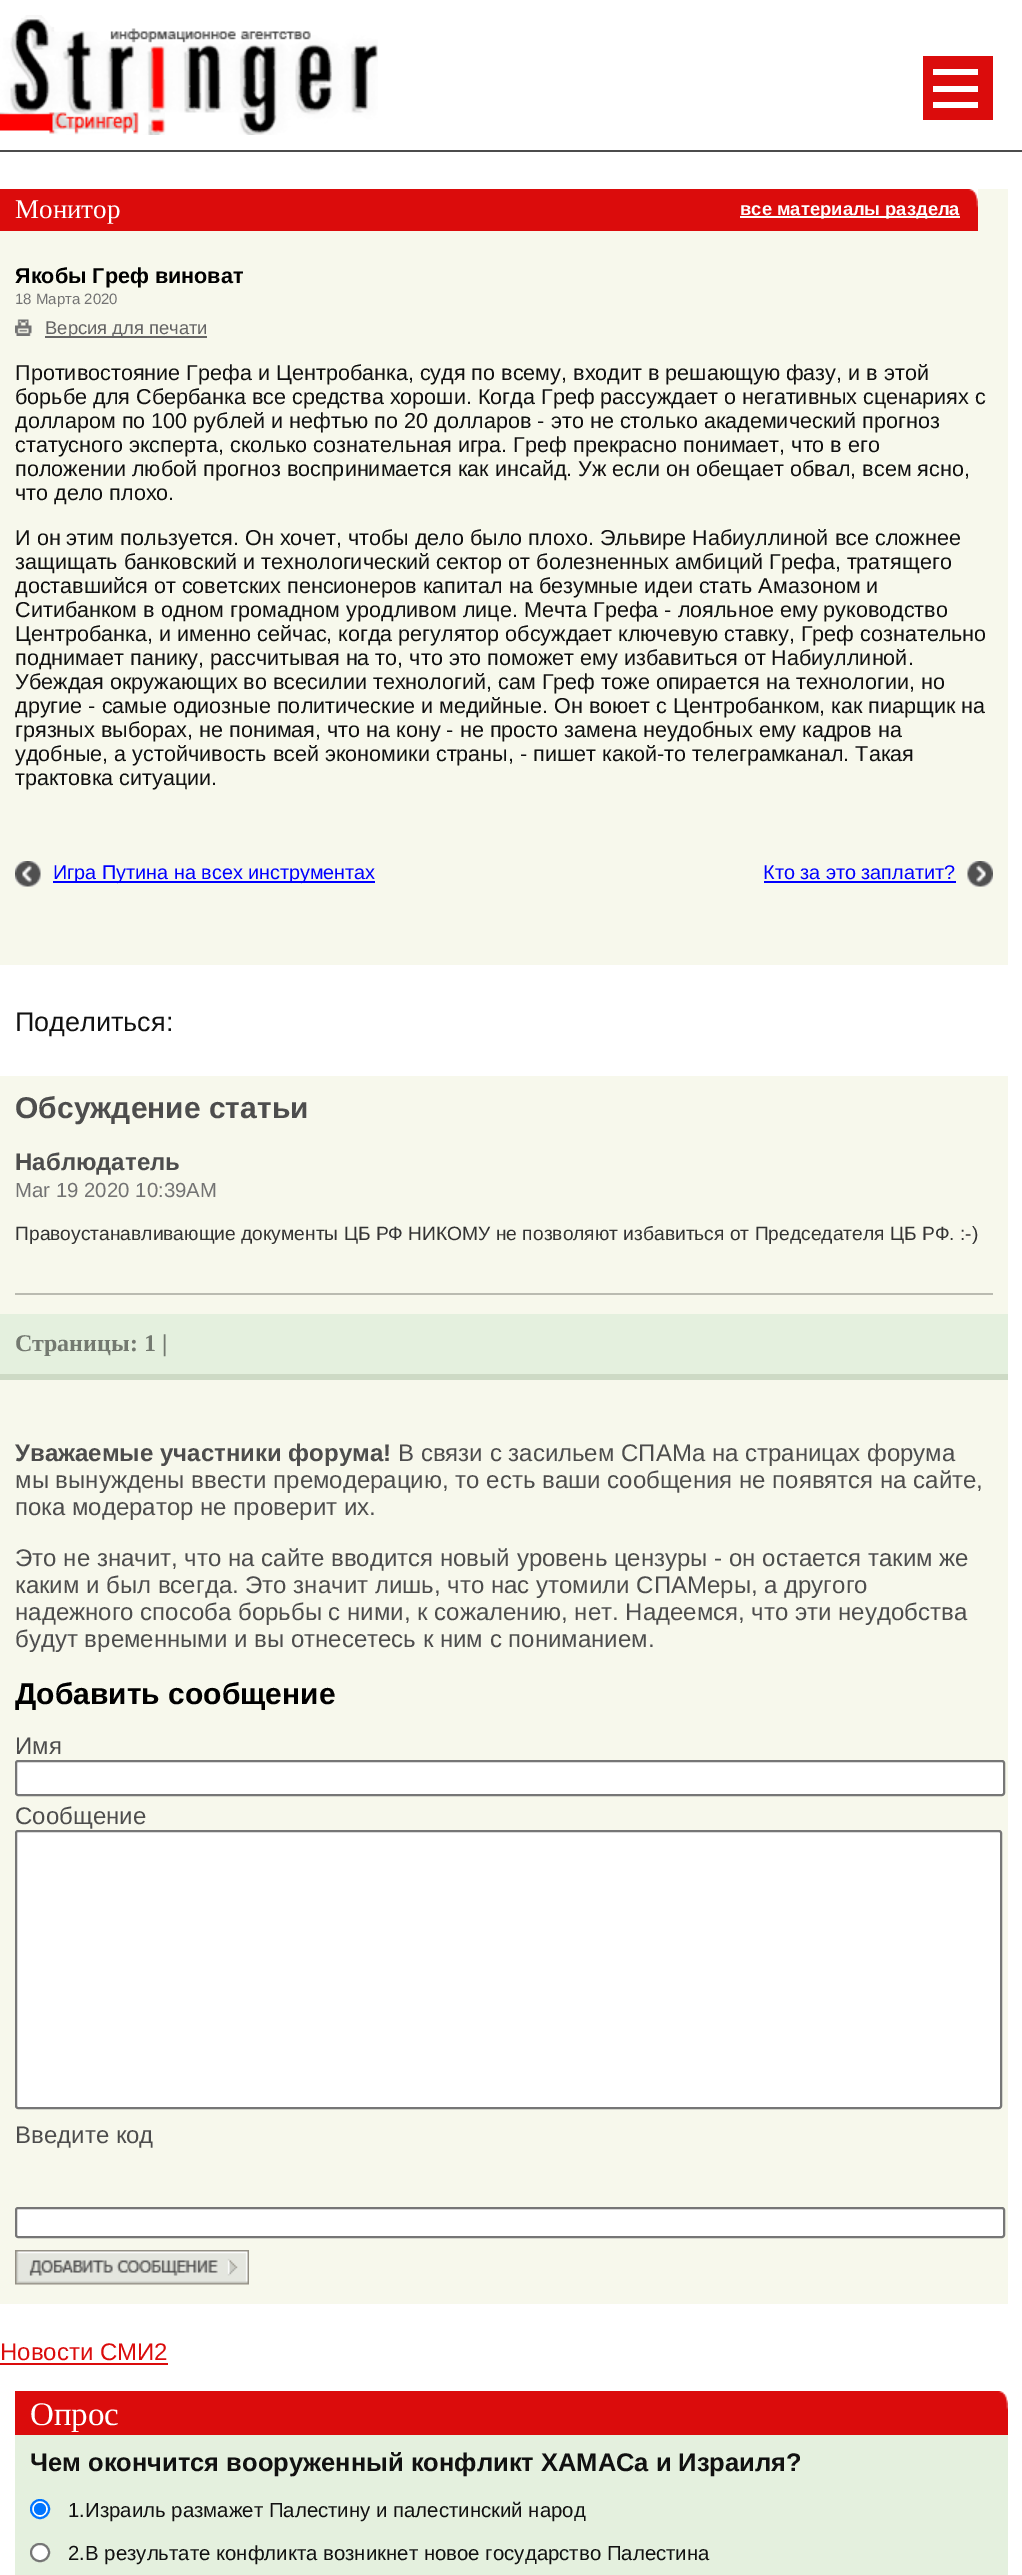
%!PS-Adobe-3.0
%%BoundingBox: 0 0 1022 2575
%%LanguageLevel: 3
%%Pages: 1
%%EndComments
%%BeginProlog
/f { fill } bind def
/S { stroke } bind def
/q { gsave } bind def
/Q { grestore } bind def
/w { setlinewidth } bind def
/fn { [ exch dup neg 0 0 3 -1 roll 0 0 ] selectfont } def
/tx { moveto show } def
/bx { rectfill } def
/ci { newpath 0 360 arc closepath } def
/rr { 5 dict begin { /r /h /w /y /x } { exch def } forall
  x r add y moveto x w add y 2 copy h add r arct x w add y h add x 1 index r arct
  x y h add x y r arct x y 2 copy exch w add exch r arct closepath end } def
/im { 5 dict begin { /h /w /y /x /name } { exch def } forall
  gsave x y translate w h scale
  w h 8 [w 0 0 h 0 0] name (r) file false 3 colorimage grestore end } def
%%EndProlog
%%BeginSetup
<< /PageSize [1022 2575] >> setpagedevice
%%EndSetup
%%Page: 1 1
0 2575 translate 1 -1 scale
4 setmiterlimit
1 setgray
0 0 1022 2575 bx
0.298 setgray
0 150 1022 2 bx
(image0.raw) 0 15 378 120 im
0.859 0.047 0.047 setrgbcolor
923 56 70 64 bx
1 setgray
933 69 45 6 bx
933 86 45 6 bx
933 102 45 6 bx
0.969 0.973 0.925 setrgbcolor
0 189 1008 776 bx
0.859 0.047 0.047 setrgbcolor
0 189 978 42 bx
(image1.raw) 968 189 10 19 im
/LiberationSerif-Regular 27 fn
1 setgray
(Монитор) 15 218 tx
740 216 220 2 bx
/LiberationSans-Bold 18.4 fn
(все материалы раздела) 740 215 tx
/LiberationSans-Bold 21.6 fn
0 setgray
(Якобы Греф виноват) 15 283 tx
/LiberationSans-Regular 15 fn
0.451 setgray
(18 Марта 2020) 15 304 tx
(image2.raw) 15 319 17 17 im
0.392 setgray
45 336 162 2 bx
/LiberationSans-Regular 18.4 fn
(Версия для печати) 45 334 tx
/LiberationSans-Regular 21.6 fn
0.067 setgray
(Противостояние Грефа и Центробанка, судя по всему, входит в решающую фазу, и в этой) 15 380 tx
(борьбе для Сбербанка все средства хороши. Когда Греф рассуждает о негативных сценариях с) 15 404 tx
(долларом по 100 рублей и нефтью по 20 долларов - это не столько академический прогноз) 15 428 tx
(статусного эксперта, сколько сознательная игра. Греф прекрасно понимает, что в его) 15 452 tx
(положении любой прогноз воспринимается как инсайд. Уж если он обещает обвал, всем ясно,) 15 476 tx
(что дело плохо.) 15 500 tx
(И он этим пользуется. Он хочет, чтобы дело было плохо. Эльвире Набиуллиной все сложнее) 15 545 tx
(защищать банковский и технологический сектор от болезненных амбиций Грефа, тратящего) 15 569 tx
(доставшийся от советских пенсионеров капитал на безумные идеи стать Амазоном и) 15 593 tx
(Ситибанком в одном громадном уродливом лице. Мечта Грефа - лояльное ему руководство) 15 617 tx
(Центробанка, и именно сейчас, когда регулятор обсуждает ключевую ставку, Греф сознательно) 15 641 tx
(поднимает панику, рассчитывая на то, что это поможет ему избавиться от Набиуллиной.) 15 665 tx
(Убеждая окружающих во всесилии технологий, сам Греф тоже опирается на технологии, но) 15 689 tx
(другие - самые одиозные политические и медийные. Он воюет с Центробанком, как пиарщик на) 15 713 tx
(грязных выборах, не понимая, что на кону - не просто замена неудобных ему кадров на) 15 737 tx
(удобные, а устойчивость всей экономики страны, - пишет какой-то телеграмканал. Такая) 15 761 tx
(трактовка ситуации.) 15 785 tx
(image3.raw) 15 861 26 26 im
0 0 1 setrgbcolor
53 881 322 2 bx
/LiberationSans-Regular 19.8 fn
(Игра Путина на всех инструментах) 53 879 tx
(Кто за это заплатит?) 763 879 tx
764 881 192 2 bx
(image4.raw) 967 861 26 26 im
/LiberationSans-Regular 27 fn
0.067 setgray
(Поделиться:) 15 1031 tx
0.969 0.973 0.925 setrgbcolor
0 1076 1008 1228 bx
/LiberationSans-Bold 30 fn
0.302 setgray
(Обсуждение статьи) 15 1118 tx
/LiberationSans-Bold 24 fn
(Наблюдатель) 15 1170 tx
/LiberationSans-Regular 20.4 fn
0.451 setgray
(Mar 19 2020 10:39AM) 15 1197 tx
0.729 0.733 0.694 setrgbcolor
15 1293 978 2 bx
/LiberationSans-Regular 19.22 fn
0.2 setgray
(Правоустанавливающие документы ЦБ РФ НИКОМУ не позволяют избавиться от Председателя ЦБ РФ. :-\)) 15 1240 tx
0.894 0.941 0.871 setrgbcolor
0 1314 1008 60 bx
0.804 0.855 0.773 setrgbcolor
0 1374 1008 6 bx
/LiberationSerif-Bold 24 fn
0.451 0.475 0.439 setrgbcolor
(Страницы: 1 |) 15 1351 tx
/LiberationSans-Bold 24 fn
0.302 setgray
(Уважаемые участники форума!) 15 1461 tx
/LiberationSans-Regular 24 fn
(В связи с засильем СПАМа на страницах форума) 398 1461 tx
(мы вынуждены ввести премодерацию, то есть ваши сообщения не появятся на сайте,) 15 1488 tx
(пока модератор не проверит их.) 15 1515 tx
(Это не значит, что на сайте вводится новый уровень цензуры - он остается таким же) 15 1566 tx
(каким и был всегда. Это значит лишь, что нас утомили СПАМеры, а другого) 15 1593 tx
(надежного способа борьбы с ними, к сожалению, нет. Надеемся, что эти неудобства) 15 1620 tx
(будут временными и вы отнесетесь к ним с пониманием.) 15 1647 tx
/LiberationSans-Bold 30 fn
0 setgray
(Добавить сообщение) 15 1704 tx
/LiberationSans-Regular 24 fn
0.302 setgray
(Имя) 15 1754 tx
1 setgray
16 1761 988 34 2 rr q f Q
0.463 setgray
2 w
S
0.302 setgray
(Сообщение) 15 1824 tx
1 setgray
16 1831 985 277 2 rr q f Q
0.463 setgray
S
0.302 setgray
(Введите код) 15 2143 tx
1 setgray
16 2208 988 29 2 rr q f Q
0.463 setgray
S
(image5.raw) 15 2250 234 35 im
0.859 0.047 0.047 setrgbcolor
(Новости СМИ2) 0 2360 tx
0 2363 168 2 bx
0.894 0.941 0.871 setrgbcolor
15 2435 993 140 bx
0.859 0.047 0.047 setrgbcolor
15 2391 993 44 bx
(image1.raw) 998 2391 10 19 im
/LiberationSerif-Regular 33 fn
1 setgray
(Опрос) 30 2425 tx
/LiberationSans-Bold 25.5 fn
0.067 setgray
(Чем окончится вооруженный конфликт ХАМАСа и Израиля?) 30 2471 tx
1 setgray
40 2509 9 ci q f Q
0 0.459 1 setrgbcolor
S
40 2509 6 ci f
/LiberationSans-Regular 20.4 fn
0.067 setgray
(1.Израиль размажет Палестину и палестинский народ) 68 2517 tx
1 setgray
31 2544 18 17 8.5 rr q f Q
0.463 setgray
S
0.067 setgray
(2.В результате конфликта возникнет новое государство Палестина) 68 2560 tx
showpage
%%EOF
